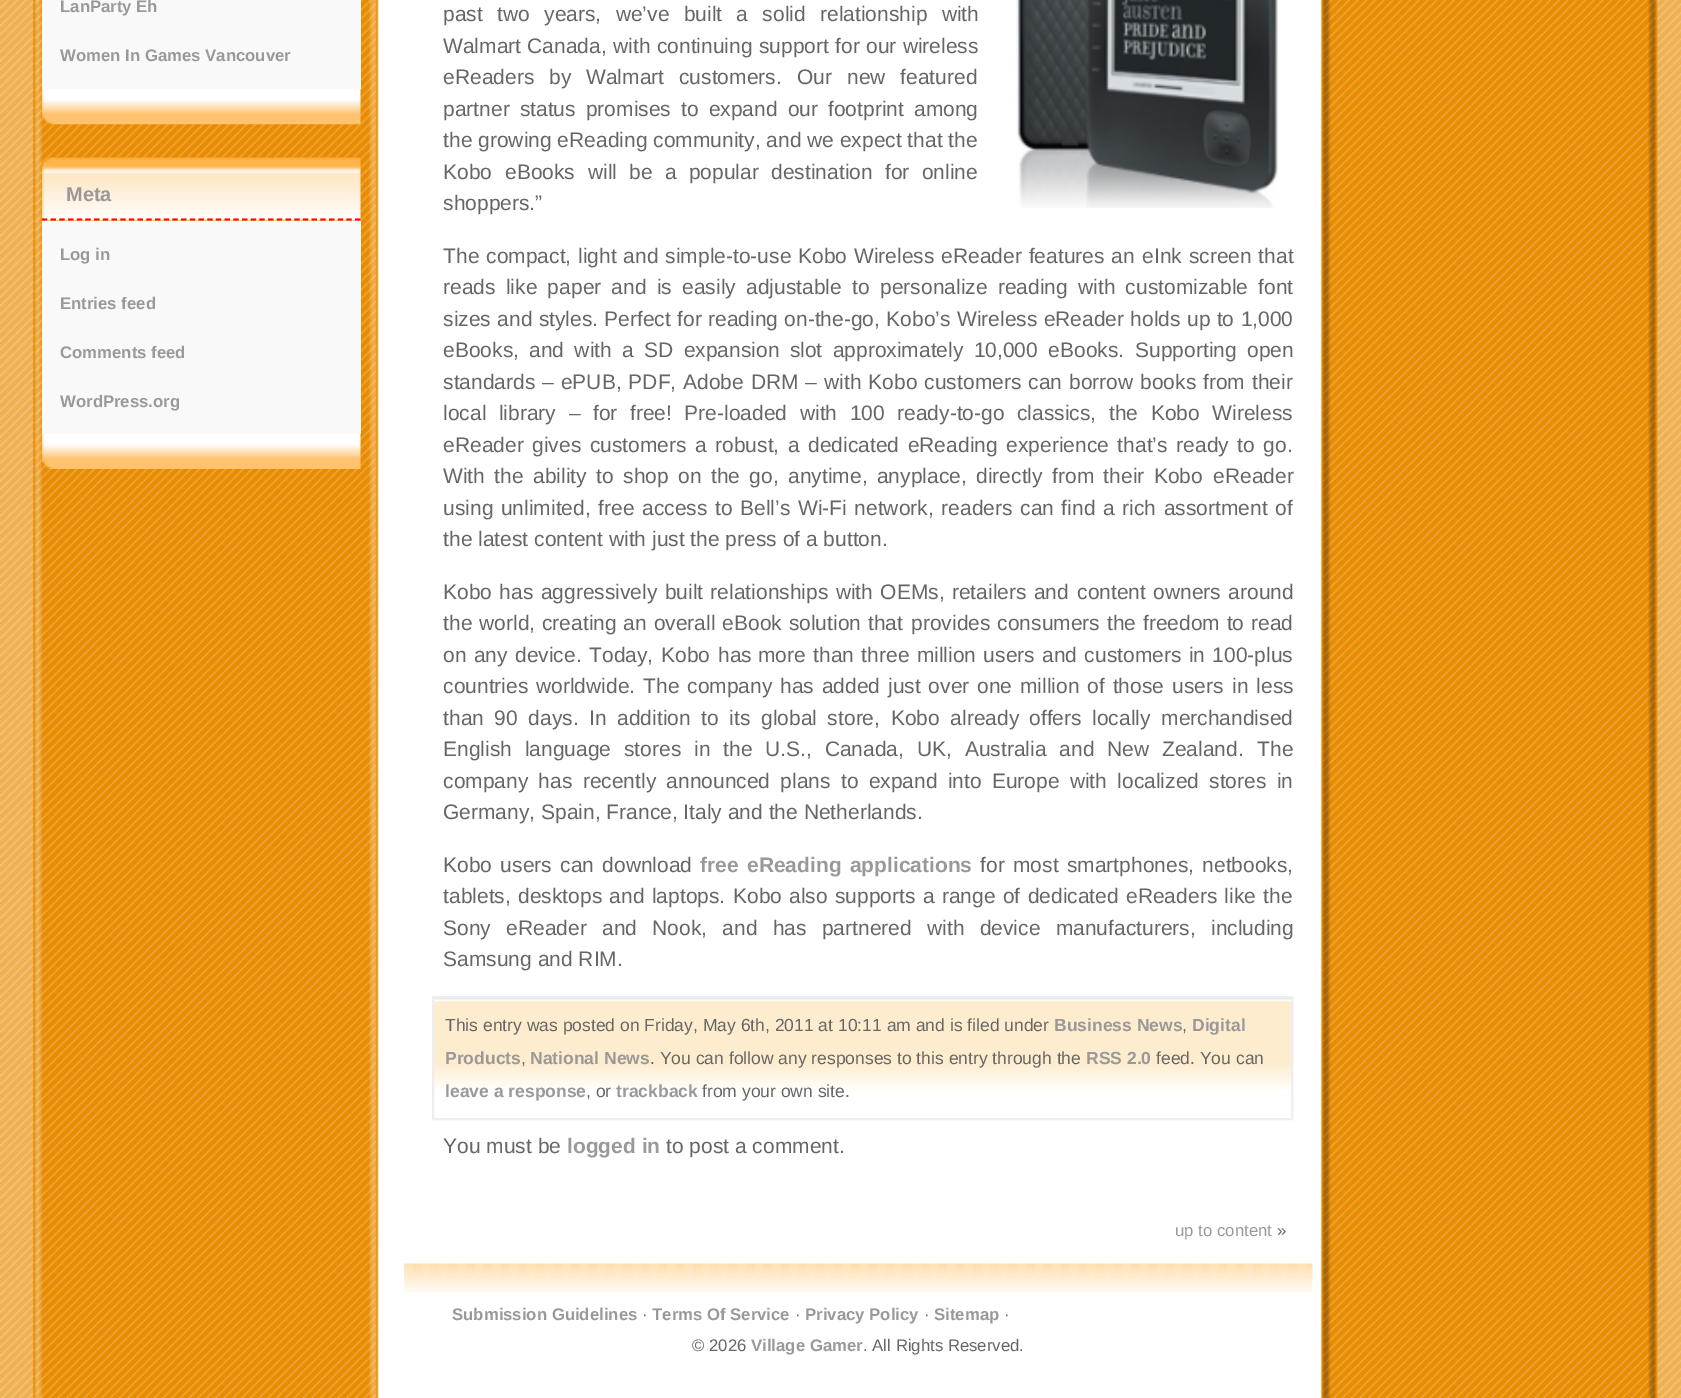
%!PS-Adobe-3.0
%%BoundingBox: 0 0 1681 1398
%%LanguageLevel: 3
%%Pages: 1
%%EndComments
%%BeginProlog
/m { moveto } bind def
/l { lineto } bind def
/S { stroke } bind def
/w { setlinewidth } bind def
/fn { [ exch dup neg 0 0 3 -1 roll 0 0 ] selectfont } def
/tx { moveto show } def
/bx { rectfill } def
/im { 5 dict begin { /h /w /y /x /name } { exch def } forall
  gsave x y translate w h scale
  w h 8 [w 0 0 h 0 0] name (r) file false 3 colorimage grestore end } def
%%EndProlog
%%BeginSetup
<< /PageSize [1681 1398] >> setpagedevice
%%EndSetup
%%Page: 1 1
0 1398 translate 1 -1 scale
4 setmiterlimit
1 setgray
0 0 1681 1398 bx
(image0.raw) 0 0 379 1398 im
(image1.raw) 1320 0 361 1398 im
(image2.raw) 42 89 319 36 im
0.976 setgray
42 0 319 89 bx
/LiberationSans-Bold 16.75 fn
0.6 setgray
(LanParty Eh) 60 12 tx
(Women In Games Vancouver) 60 61 tx
(image3.raw) 42 434 319 35 im
(image4.raw) 42 157 319 64 im
1 0 0 setrgbcolor
1.8 w
[5.25 3.45] 0 setdash
42 219.5 m 360.5 219.5 l S
/LiberationSans-Bold 20 fn
0.6 setgray
(Meta) 66 201 tx
0.976 setgray
42 221 319 213 bx
/LiberationSans-Bold 16.75 fn
0.6 setgray
(Log in) 60 260 tx
(Entries feed) 60 309 tx
(Comments feed) 60 358 tx
(WordPress.org) 60 407 tx
/LiberationSans-Regular 21 fn
0.4 setgray
(past) 443 21 tx
497 21 m 8.5 0 32 (two years, we’ve built a solid relationship with) widthshow
(Walmart Canada,) 443 53 tx
613 53 m 0.5 0 32 (with continuing support for our wireless) widthshow
443 84 m 9 0 32 (eReaders by Walmart customers.) widthshow
797 84 m 9 0 32 (Our new featured) widthshow
443 116 m 4.25 0 32 (partner status promises to expand our footprint among) widthshow
(the growing eReading community, and we expect that the) 443 147 tx
443 179 m 7 0 32 (Kobo eBooks will) widthshow
629 179 m 6.5 0 32 (be a popular destination for online) widthshow
(shoppers.”) 443 210 tx
(image5.raw) 1016 0 262 208 im
443 263 m 1 0 32 (The compact, light and simple-to-use Kobo Wireless eReader features an) widthshow
1142 263 m 1 0 32 (eInk screen that) widthshow
443 294 m 4.4 0 32 (reads like paper and is easily adjustable to) widthshow
880 294 m 4.4 0 32 (personalize reading with customizable font) widthshow
443 326 m 0.5 0 32 (sizes and styles.) widthshow
(Perfect) 604 326 tx
677 326 m 0.5 0 32 (for reading on-the-go, Kobo’s Wireless eReader holds up to 1,000) widthshow
(eBooks,) 443 357 tx
529 357 m 4.5 0 32 (and with a SD expansion slot approximately 10,000 eBooks.) widthshow
(Supporting) 1135 357 tx
(open) 1247 357 tx
443 389 m 1.1 0 32 (standards – ePUB, PDF, Adobe DRM – with Kobo customers can borrow) widthshow
1140 389 m 1.1 0 32 (books from their) widthshow
443 420 m 6.75 0 32 (local library – for free! Pre-loaded with 100) widthshow
897 420 m 6.75 0 32 (ready-to-go classics, the Kobo Wireless) widthshow
443 452 m 2.75 0 32 (eReader gives customers a) widthshow
715 452 m 2.75 0 32 (robust, a dedicated eReading experience that’s ready to go.) widthshow
443 483 m 3.6 0 32 (With the) widthshow
533 483 m 3.6 0 32 (ability to shop on the go, anytime, anyplace, directly from their Kobo) widthshow
(eReader) 1213 483 tx
443 515 m 1.75 0 32 (using unlimited, free access to Bell’s Wi-Fi network, readers) widthshow
1020 515 m 1.75 0 32 (can find a rich assortment of) widthshow
(the latest content with just the press of a button.) 443 546 tx
443 599 m 1.5 0 32 (Kobo has aggressively built relationships with OEMs, retailers and) widthshow
1077 599 m 1.5 0 32 (content owners around) widthshow
443 630 m 1 0 32 (the world, creating an overall eBook solution that) widthshow
911 630 m 1 0 32 (provides consumers the freedom to read) widthshow
443 662 m 1.5 0 32 (on any device.) widthshow
589 662 m 2 0 32 (Today, Kobo has) widthshow
758 662 m 1.5 0 32 (more than three million users and customers in 100-plus) widthshow
(countries) 443 693 tx
(worldwide.) 536 693 tx
643 693 m 2 0 32 (The company has added just over one million of those users) widthshow
1232 693 m 2 0 32 (in less) widthshow
443 725 m 4.75 0 32 (than 90 days.) widthshow
589 725 m 4.75 0 32 (In addition to its global store, Kobo already) widthshow
1029 725 m 4.75 0 32 (offers locally merchandised) widthshow
443 756 m 7 0 32 (English language stores in the U.S., Canada, UK, Australia and New Zealand.) widthshow
(The) 1257 756 tx
443 788 m 4.4 0 32 (company has recently announced plans to expand into Europe with localized stores in) widthshow
(Germany, Spain, France, Italy and the Netherlands.) 443 819 tx
443 872 m 2.5 0 32 (Kobo users can download) widthshow
/LiberationSans-Bold 21 fn
0.6 setgray
700 872 m 2.5 0 32 (free eReading applications) widthshow
/LiberationSans-Regular 21 fn
0.4 setgray
980 872 m 2.5 0 32 (for most smartphones, netbooks,) widthshow
443 903 m 1.5 0 32 (tablets, desktops and laptops.) widthshow
(Kobo) 733 903 tx
789 903 m 1.5 0 32 (also supports a range of dedicated eReaders like the) widthshow
443 935 m 9.5 0 32 (Sony eReader and) widthshow
652 935 m 9.5 0 32 (Nook, and has partnered with device manufacturers, including) widthshow
(Samsung and RIM.) 443 966 tx
(image6.raw) 434 997 860 93 im
0.933 setgray
2 w
[] 0 setdash
433 997 859 122 rectstroke
/LiberationSans-Regular 17.5 fn
0.4 setgray
(This entry was posted on Friday, May 6th, 2011 at 10:11 am and is filed under) 445 1031 tx
/LiberationSans-Bold 17.5 fn
0.6 setgray
(Business News) 1054 1031 tx
/LiberationSans-Regular 17.5 fn
0.4 setgray
(,) 1182 1031 tx
/LiberationSans-Bold 17.5 fn
0.6 setgray
(Digital) 1192 1031 tx
(Products) 445 1064 tx
/LiberationSans-Regular 17.5 fn
0.4 setgray
(,) 521 1064 tx
/LiberationSans-Bold 17.5 fn
0.6 setgray
(National News) 530 1064 tx
/LiberationSans-Regular 17.5 fn
0.4 setgray
(. You can follow any responses to this entry through the) 650 1064 tx
/LiberationSans-Bold 17.5 fn
0.6 setgray
(RSS 2.0) 1086 1064 tx
/LiberationSans-Regular 17.5 fn
0.4 setgray
(feed. You can) 1156 1064 tx
/LiberationSans-Bold 17.5 fn
0.6 setgray
(leave a response) 445 1097 tx
/LiberationSans-Regular 17.5 fn
0.4 setgray
(, or) 586 1097 tx
/LiberationSans-Bold 17.5 fn
0.6 setgray
(trackback) 616 1097 tx
/LiberationSans-Regular 17.5 fn
0.4 setgray
(from your own site.) 702 1097 tx
/LiberationSans-Regular 21 fn
(You must be) 443 1153 tx
/LiberationSans-Bold 21 fn
0.6 setgray
(logged in) 567 1153 tx
/LiberationSans-Regular 21 fn
0.4 setgray
(to post a comment.) 666 1153 tx
/LiberationSans-Regular 16.75 fn
0.6 setgray
(up to content) 1175 1236 tx
0.4 setgray
(») 1277 1236 tx
(image7.raw) 404 1263 909 30 im
/LiberationSans-Bold 16.75 fn
0.6 setgray
(Submission Guidelines) 452 1320 tx
/LiberationSans-Regular 16.75 fn
0.4 setgray
(·) 642 1320 tx
/LiberationSans-Bold 16.75 fn
0.6 setgray
(Terms Of Service) 652 1320 tx
/LiberationSans-Regular 16.75 fn
0.4 setgray
(·) 795 1320 tx
/LiberationSans-Bold 16.75 fn
0.6 setgray
(Privacy Policy) 805 1320 tx
/LiberationSans-Regular 16.75 fn
0.4 setgray
(·) 924 1320 tx
/LiberationSans-Bold 16.75 fn
0.6 setgray
(Sitemap) 934 1320 tx
/LiberationSans-Regular 16.75 fn
0.4 setgray
(·) 1004 1320 tx
(© 2026) 692 1351 tx
/LiberationSans-Bold 16.75 fn
0.6 setgray
(Village Gamer) 751 1351 tx
/LiberationSans-Regular 16.75 fn
0.4 setgray
(. All Rights Reserved.) 863 1351 tx
showpage
%%EOF
